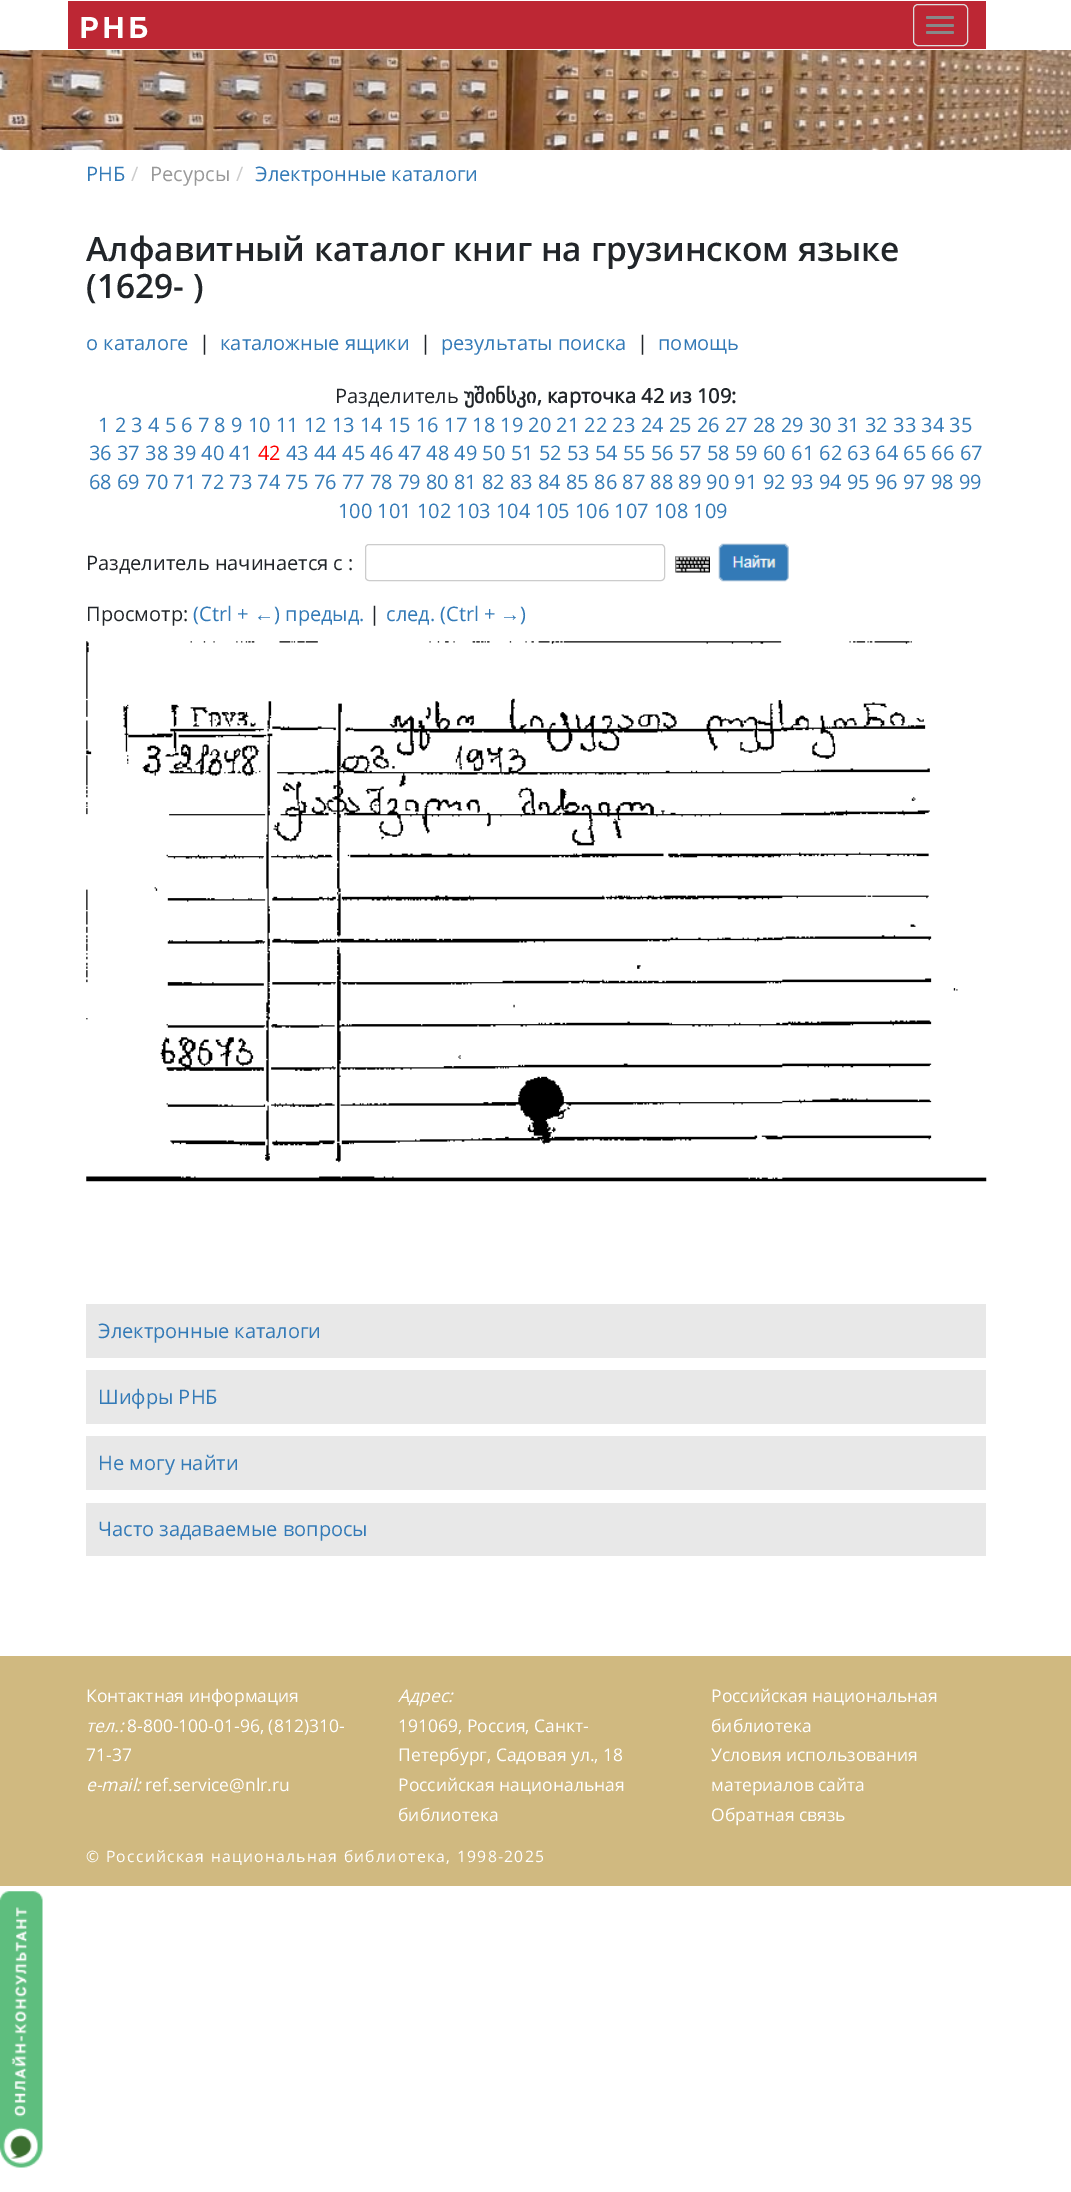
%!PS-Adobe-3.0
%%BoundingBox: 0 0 1071 2192
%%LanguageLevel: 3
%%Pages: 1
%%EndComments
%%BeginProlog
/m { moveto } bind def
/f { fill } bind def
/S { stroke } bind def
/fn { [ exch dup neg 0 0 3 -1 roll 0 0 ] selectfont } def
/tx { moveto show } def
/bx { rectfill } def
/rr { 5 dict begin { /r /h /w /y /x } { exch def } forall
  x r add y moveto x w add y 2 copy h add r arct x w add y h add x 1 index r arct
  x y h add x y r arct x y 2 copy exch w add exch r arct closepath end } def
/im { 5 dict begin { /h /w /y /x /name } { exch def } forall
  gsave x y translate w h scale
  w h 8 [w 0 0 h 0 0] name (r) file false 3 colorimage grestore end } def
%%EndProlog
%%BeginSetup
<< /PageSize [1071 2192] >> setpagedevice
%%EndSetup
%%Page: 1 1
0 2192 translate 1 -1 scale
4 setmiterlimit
1 setgray
0 0 1071 2192 bx
(image0.raw) 0 50 1071 100 im
0.741 0.153 0.204 setrgbcolor
68 1 918 48 bx
/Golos-SemiBold 30 fn
1 setgray
79 38 m 3 0 (РНБ) ashow
0.867 setgray
913.5 4.5 54 41 4.5 rr S
0.533 setgray
926 16 28 3 1.5 rr f
926 24 28 3 1.5 rr f
926 31 28 3 1.5 rr f
/OpenSans-Regular 20 fn
0.2 0.478 0.718 setrgbcolor
(РНБ) 86 181 tx
0.8 setgray
(/) 131 181 tx
0.6 setgray
(Ресурсы) 150 181 tx
0.8 setgray
(/) 236 181 tx
0.2 0.478 0.718 setrgbcolor
(Электронные каталоги) 255 181 tx
/OpenSans-SemiBold 33.5 fn
0.129 0.145 0.161 setrgbcolor
(Алфавитный каталог книг на грузинском языке) 86 261 tx
(\(1629- \)) 86 298 tx
/OpenSans-Regular 20 fn
0.2 0.478 0.718 setrgbcolor
(о каталоге) 86 350 tx
0.129 0.145 0.161 setrgbcolor
(|) 199 350 tx
0.2 0.478 0.718 setrgbcolor
(каталожные ящики) 220 350 tx
0.129 0.145 0.161 setrgbcolor
(|) 420 350 tx
0.2 0.478 0.718 setrgbcolor
(результаты поиска) 441 350 tx
0.129 0.145 0.161 setrgbcolor
(|) 637 350 tx
0.2 0.478 0.718 setrgbcolor
(помощь) 658 350 tx
0.129 0.145 0.161 setrgbcolor
(Разделитель) 335 403 tx
/DejaVuSans-Bold 20 fn
(უშინსკი) 464 403 tx
/OpenSans-Bold 20 fn
(, карточка 42 из 109:) 537 403 tx
/OpenSans-Regular 20 fn
0.2 0.478 0.718 setrgbcolor
(1 2 3 4 5 6 7 8 9 10 11 12 13 14 15 16 17 18 19 20 21 22 23 24 25 26 27 28 29 30 31 32 33 34 35) 98 432 tx
(36 37 38 39 40 41) 89 460 tx
1 0 0 setrgbcolor
(42) 258 460 tx
0.2 0.478 0.718 setrgbcolor
(43 44 45 46 47 48 49 50 51 52 53 54 55 56 57 58 59 60 61 62 63 64 65 66 67) 286 460 tx
(68 69 70 71 72 73 74 75 76 77 78 79 80 81 82 83 84 85 86 87 88 89 90 91 92 93 94 95 96 97 98 99) 89 489 tx
(100 101 102 103 104 105 106 107 108 109) 338 518 tx
0.129 0.145 0.161 setrgbcolor
(Разделитель начинается с :) 86 570 tx
0.8 setgray
365.5 544.5 299 36 3.5 rr S
(image1.raw) 675 556 35 17 im
(image2.raw) 718 543 71 39 im
0.129 0.145 0.161 setrgbcolor
(Просмотр:) 86 621 tx
0.2 0.478 0.718 setrgbcolor
(\(Ctrl +) 193 621 tx
/LiberationSans-Regular 20 fn
(←) 254 621 tx
/OpenSans-Regular 20 fn
(\) предыд.) 274 621 tx
0.129 0.145 0.161 setrgbcolor
(|) 369 621 tx
0.2 0.478 0.718 setrgbcolor
(след. \(Ctrl +) 386 621 tx
/LiberationSans-Regular 20 fn
(→) 500 621 tx
/OpenSans-Regular 20 fn
(\)) 520 621 tx
(image3.raw) 86 641 901 541 im
0.91 setgray
86 1304 900 54 bx
0.2 0.478 0.718 setrgbcolor
(Электронные каталоги) 98 1338 tx
0.91 setgray
86 1370 900 54 bx
0.2 0.478 0.718 setrgbcolor
(Шифры РНБ) 98 1404 tx
0.91 setgray
86 1436 900 54 bx
0.2 0.478 0.718 setrgbcolor
(Не могу найти) 98 1470 tx
0.91 setgray
86 1503 900 53 bx
0.2 0.478 0.718 setrgbcolor
(Часто задаваемые вопросы) 98 1536 tx
0.816 0.725 0.502 setrgbcolor
0 1656 1071 230 bx
/OpenSans-Regular 17.5 fn
1 setgray
(Контактная информация) 86 1702 tx
/OpenSans-Italic 17.5 fn
(тел.:) 86 1732 tx
/OpenSans-Regular 17.5 fn
(8-800-100-01-96, \(812\)310-) 127 1732 tx
(71-37) 86 1761 tx
/OpenSans-Italic 17.5 fn
(e-mail:) 86 1791 tx
/OpenSans-Regular 17.5 fn
(ref.service@nlr.ru) 145 1791 tx
/OpenSans-Italic 17.5 fn
(Адрес:) 398 1702 tx
/OpenSans-Regular 17.5 fn
(191069, Россия, Санкт-) 398 1732 tx
(Петербург, Садовая ул., 18) 398 1761 tx
(Российская национальная) 398 1791 tx
(библиотека) 398 1821 tx
(Российская национальная) 711 1702 tx
(библиотека) 711 1732 tx
(Условия использования) 711 1761 tx
(материалов сайта) 711 1791 tx
(Обратная связь) 711 1821 tx
/OpenSans-Regular 15.75 fn
86 1862 m 1.25 0 (© Российская национальная библиотека, 1998-2025) ashow
(image4.raw) 0 1891 43 277 im
showpage
%%EOF
